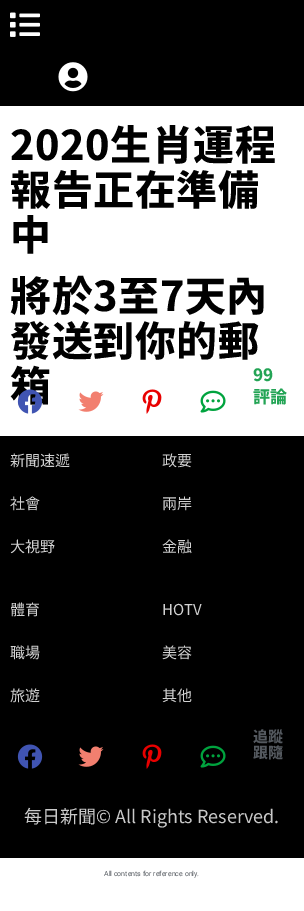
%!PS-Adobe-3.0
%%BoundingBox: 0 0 304 911
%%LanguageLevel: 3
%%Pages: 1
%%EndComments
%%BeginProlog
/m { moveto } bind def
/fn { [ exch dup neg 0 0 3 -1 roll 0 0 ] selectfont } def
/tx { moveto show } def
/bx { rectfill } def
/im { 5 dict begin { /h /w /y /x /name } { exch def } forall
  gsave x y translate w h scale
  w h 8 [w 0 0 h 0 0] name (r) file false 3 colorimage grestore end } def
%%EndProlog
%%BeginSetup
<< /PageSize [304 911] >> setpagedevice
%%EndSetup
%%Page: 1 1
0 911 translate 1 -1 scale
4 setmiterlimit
1 setgray
0 0 304 911 bx
0 setgray
0 0 304 106 bx
(image0.raw) 10 12 30 25 im
(image1.raw) 58 62 30 30 im
/NotoSansJP-ExtraBold 41 fn
10 160 m 0.5 0 (2020生肖運程) ashow
10 205 m 0.5 0 (報告正在準備) ashow
10 250 m 0.5 0 (中) ashow
10 311 m 0.5 0 (將於3至7天內) ashow
10 356 m 0.5 0 (發送到你的郵) ashow
10 401 m 0.5 0 (箱) ashow
(image2.raw) 17 389 26 25 im
(image3.raw) 78 391 26 21 im
(image4.raw) 142 389 20 25 im
(image5.raw) 200 390 26 23 im
/NotoSansJP-ExtraBold 17 fn
0.137 0.643 0.333 setrgbcolor
(99) 253 381 tx
(評論) 253 403 tx
0 setgray
0 436 304 422 bx
/NotoSansJP-Regular 15 fn
0.82 setgray
(新聞速遞) 10 466 tx
(社會) 10 509 tx
(大視野) 10 552 tx
(政要) 162 466 tx
(兩岸) 162 509 tx
(金融) 162 552 tx
(體育) 10 615 tx
(職場) 10 658 tx
(旅遊) 10 701 tx
(HOTV) 162 615 tx
(美容) 162 658 tx
(其他) 162 701 tx
(image6.raw) 17 744 26 25 im
(image7.raw) 78 746 26 21 im
(image8.raw) 142 744 20 25 im
(image9.raw) 200 745 26 23 im
/NotoSansJP-ExtraBold 15 fn
0.329 0.349 0.373 setrgbcolor
(追蹤) 253 742 tx
(跟隨) 253 758 tx
/NotoSansJP-Regular 18 fn
0.788 setgray
(每日新聞© All Rights Reserved.) 24 823 tx
/Roboto-Regular 7 fn
0.329 0.349 0.373 setrgbcolor
(All contents for reference only.) 104 876 tx
showpage
%%EOF
